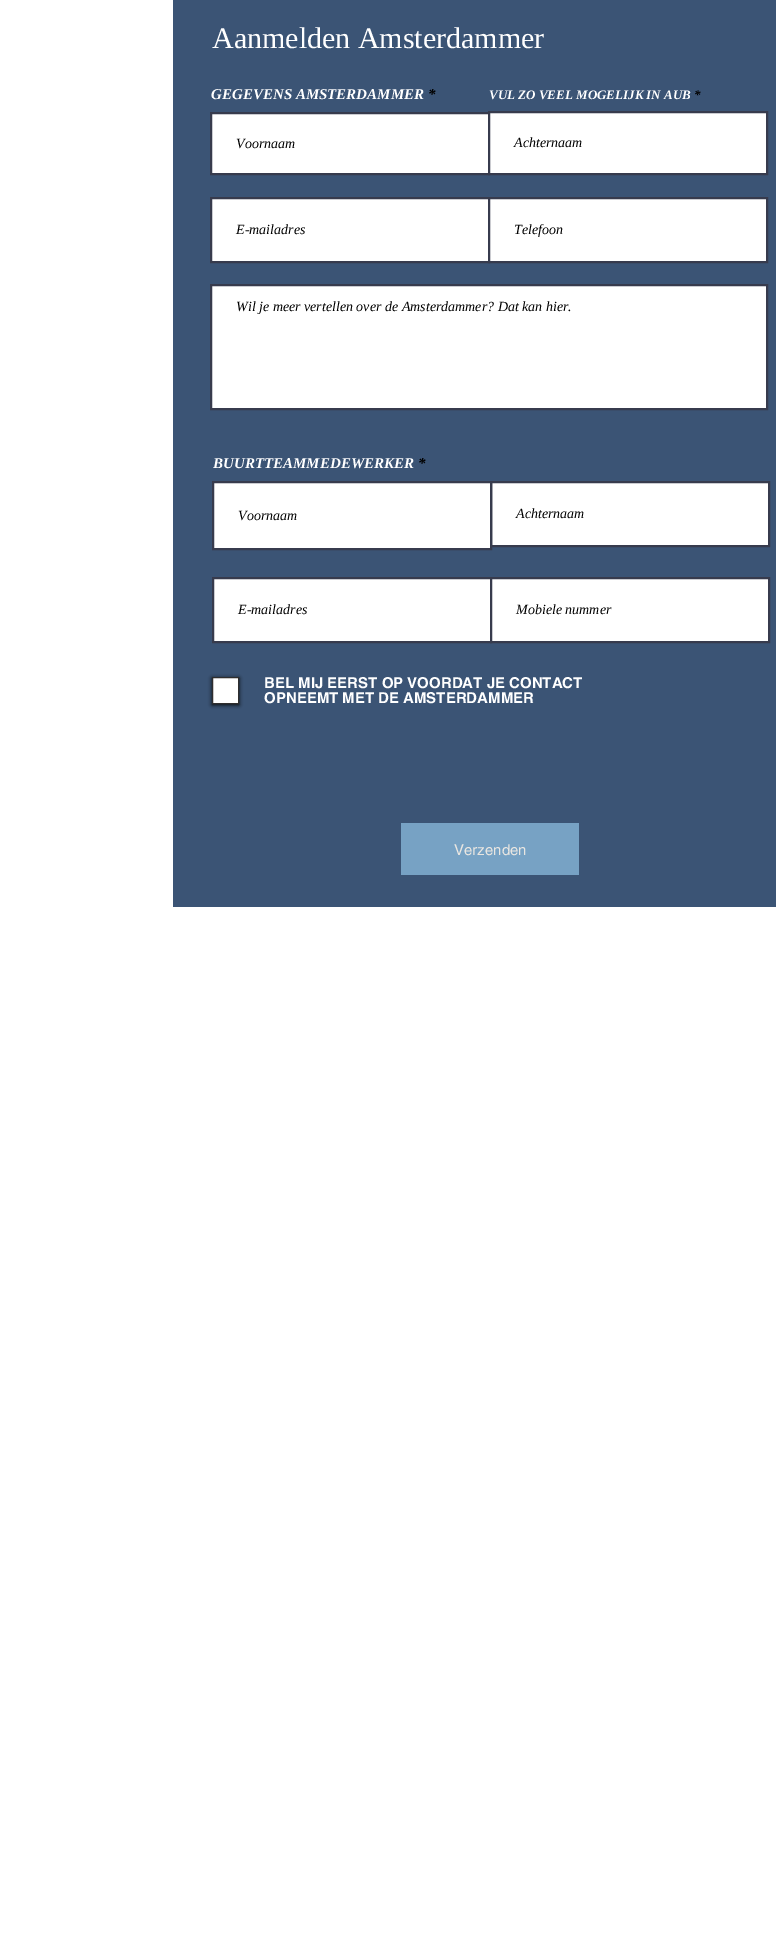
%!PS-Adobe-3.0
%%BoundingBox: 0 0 776 1947
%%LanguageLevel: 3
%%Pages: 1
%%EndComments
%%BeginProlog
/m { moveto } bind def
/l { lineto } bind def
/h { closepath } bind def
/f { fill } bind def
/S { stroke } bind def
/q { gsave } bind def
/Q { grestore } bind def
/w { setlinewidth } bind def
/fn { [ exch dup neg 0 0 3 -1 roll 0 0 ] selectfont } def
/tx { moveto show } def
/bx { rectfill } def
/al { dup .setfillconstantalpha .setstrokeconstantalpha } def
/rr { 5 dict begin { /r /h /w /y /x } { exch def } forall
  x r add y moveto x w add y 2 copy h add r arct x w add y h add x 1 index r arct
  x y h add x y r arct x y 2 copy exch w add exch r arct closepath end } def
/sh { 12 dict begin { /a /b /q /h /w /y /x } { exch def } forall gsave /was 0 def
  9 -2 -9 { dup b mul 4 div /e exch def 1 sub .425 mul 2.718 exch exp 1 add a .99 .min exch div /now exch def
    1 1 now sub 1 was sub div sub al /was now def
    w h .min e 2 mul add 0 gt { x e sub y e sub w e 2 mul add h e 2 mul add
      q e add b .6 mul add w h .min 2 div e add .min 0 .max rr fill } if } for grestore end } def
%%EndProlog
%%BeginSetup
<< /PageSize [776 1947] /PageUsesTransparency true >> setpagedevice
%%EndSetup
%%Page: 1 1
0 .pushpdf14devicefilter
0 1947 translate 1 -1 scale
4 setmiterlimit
1 setgray
0 0 776 1947 bx
0.231 0.329 0.459 setrgbcolor
173 0 603 907 bx
/LiberationSerif-Regular 30 fn
1 setgray
(Aanmelden Amsterdammer) 212 48 tx
/LiberationSerif-BoldItalic 15 fn
(GEGEVENS AMSTERDAMMER) 211 99 tx
0 setgray
(*) 428 99 tx
1 setgray
211 113 m 489 113 l 489 174 l 211 174 l h q f Q
0.216 0.231 0.302 setrgbcolor
2 w
S
/LiberationSerif-Italic 14 fn
0 setgray
(Voornaam) 236 148 tx
/LiberationSerif-BoldItalic 13 fn
1 setgray
(VUL ZO VEEL MOGELIJK IN AUB) 489 99 tx
0 setgray
(*) 694 99 tx
1 setgray
489 112 m 767 112 l 767 174 l 489 174 l h q f Q
0.216 0.231 0.302 setrgbcolor
S
/LiberationSerif-Italic 14 fn
0 setgray
(Achternaam) 514 147 tx
1 setgray
211 198 m 489 198 l 489 262 l 211 262 l h q f Q
0.216 0.231 0.302 setrgbcolor
S
0 setgray
(E-mailadres) 236 234 tx
1 setgray
489 198 m 767 198 l 767 262 l 489 262 l h q f Q
0.216 0.231 0.302 setrgbcolor
S
0 setgray
(Telefoon) 514 234 tx
1 setgray
211 285 m 767 285 l 767 409 l 211 409 l h q f Q
0.216 0.231 0.302 setrgbcolor
S
0 setgray
(Wil je meer vertellen over de Amsterdammer? Dat kan hier.) 236 311 tx
/LiberationSerif-BoldItalic 15 fn
1 setgray
(BUURTTEAMMEDEWERKER) 213 468 tx
0 setgray
(*) 418 468 tx
1 setgray
491 482 m 769 482 l 769 546 l 491 546 l h q f Q
0.216 0.231 0.302 setrgbcolor
S
1 setgray
213 482 m 491 482 l 491 549 l 213 549 l h q f Q
0.216 0.231 0.302 setrgbcolor
S
/LiberationSerif-Italic 14 fn
0 setgray
(Voornaam) 238 520 tx
(Achternaam) 516 518 tx
1 setgray
213 578 m 491 578 l 491 642 l 213 642 l h q f Q
0.216 0.231 0.302 setrgbcolor
S
0 setgray
(E-mailadres) 238 614 tx
1 setgray
491 578 m 769 578 l 769 642 l 491 642 l h q f Q
0.216 0.231 0.302 setrgbcolor
S
0 setgray
(Mobiele nummer) 516 614 tx
212 678 27 27 0 2 0.93 sh
1 setgray
212.5 677.5 m 238.5 677.5 l 238.5 703.5 l 212.5 703.5 l h q f Q
0.184 0.18 0.18 setrgbcolor
1 w
S
/helvetica-Bold 15 fn
1 setgray
(BEL MIJ EERST OP VOORDAT JE CONTACT) 264 688 tx
(OPNEEMT MET DE AMSTERDAMMER) 264 703 tx
0.467 0.635 0.769 setrgbcolor
401 823 178 52 bx
/helvetica-Regular 15 fn
0.914 0.902 0.882 setrgbcolor
(Verzenden) 454 855 tx
.poppdf14devicefilter showpage
%%EOF
